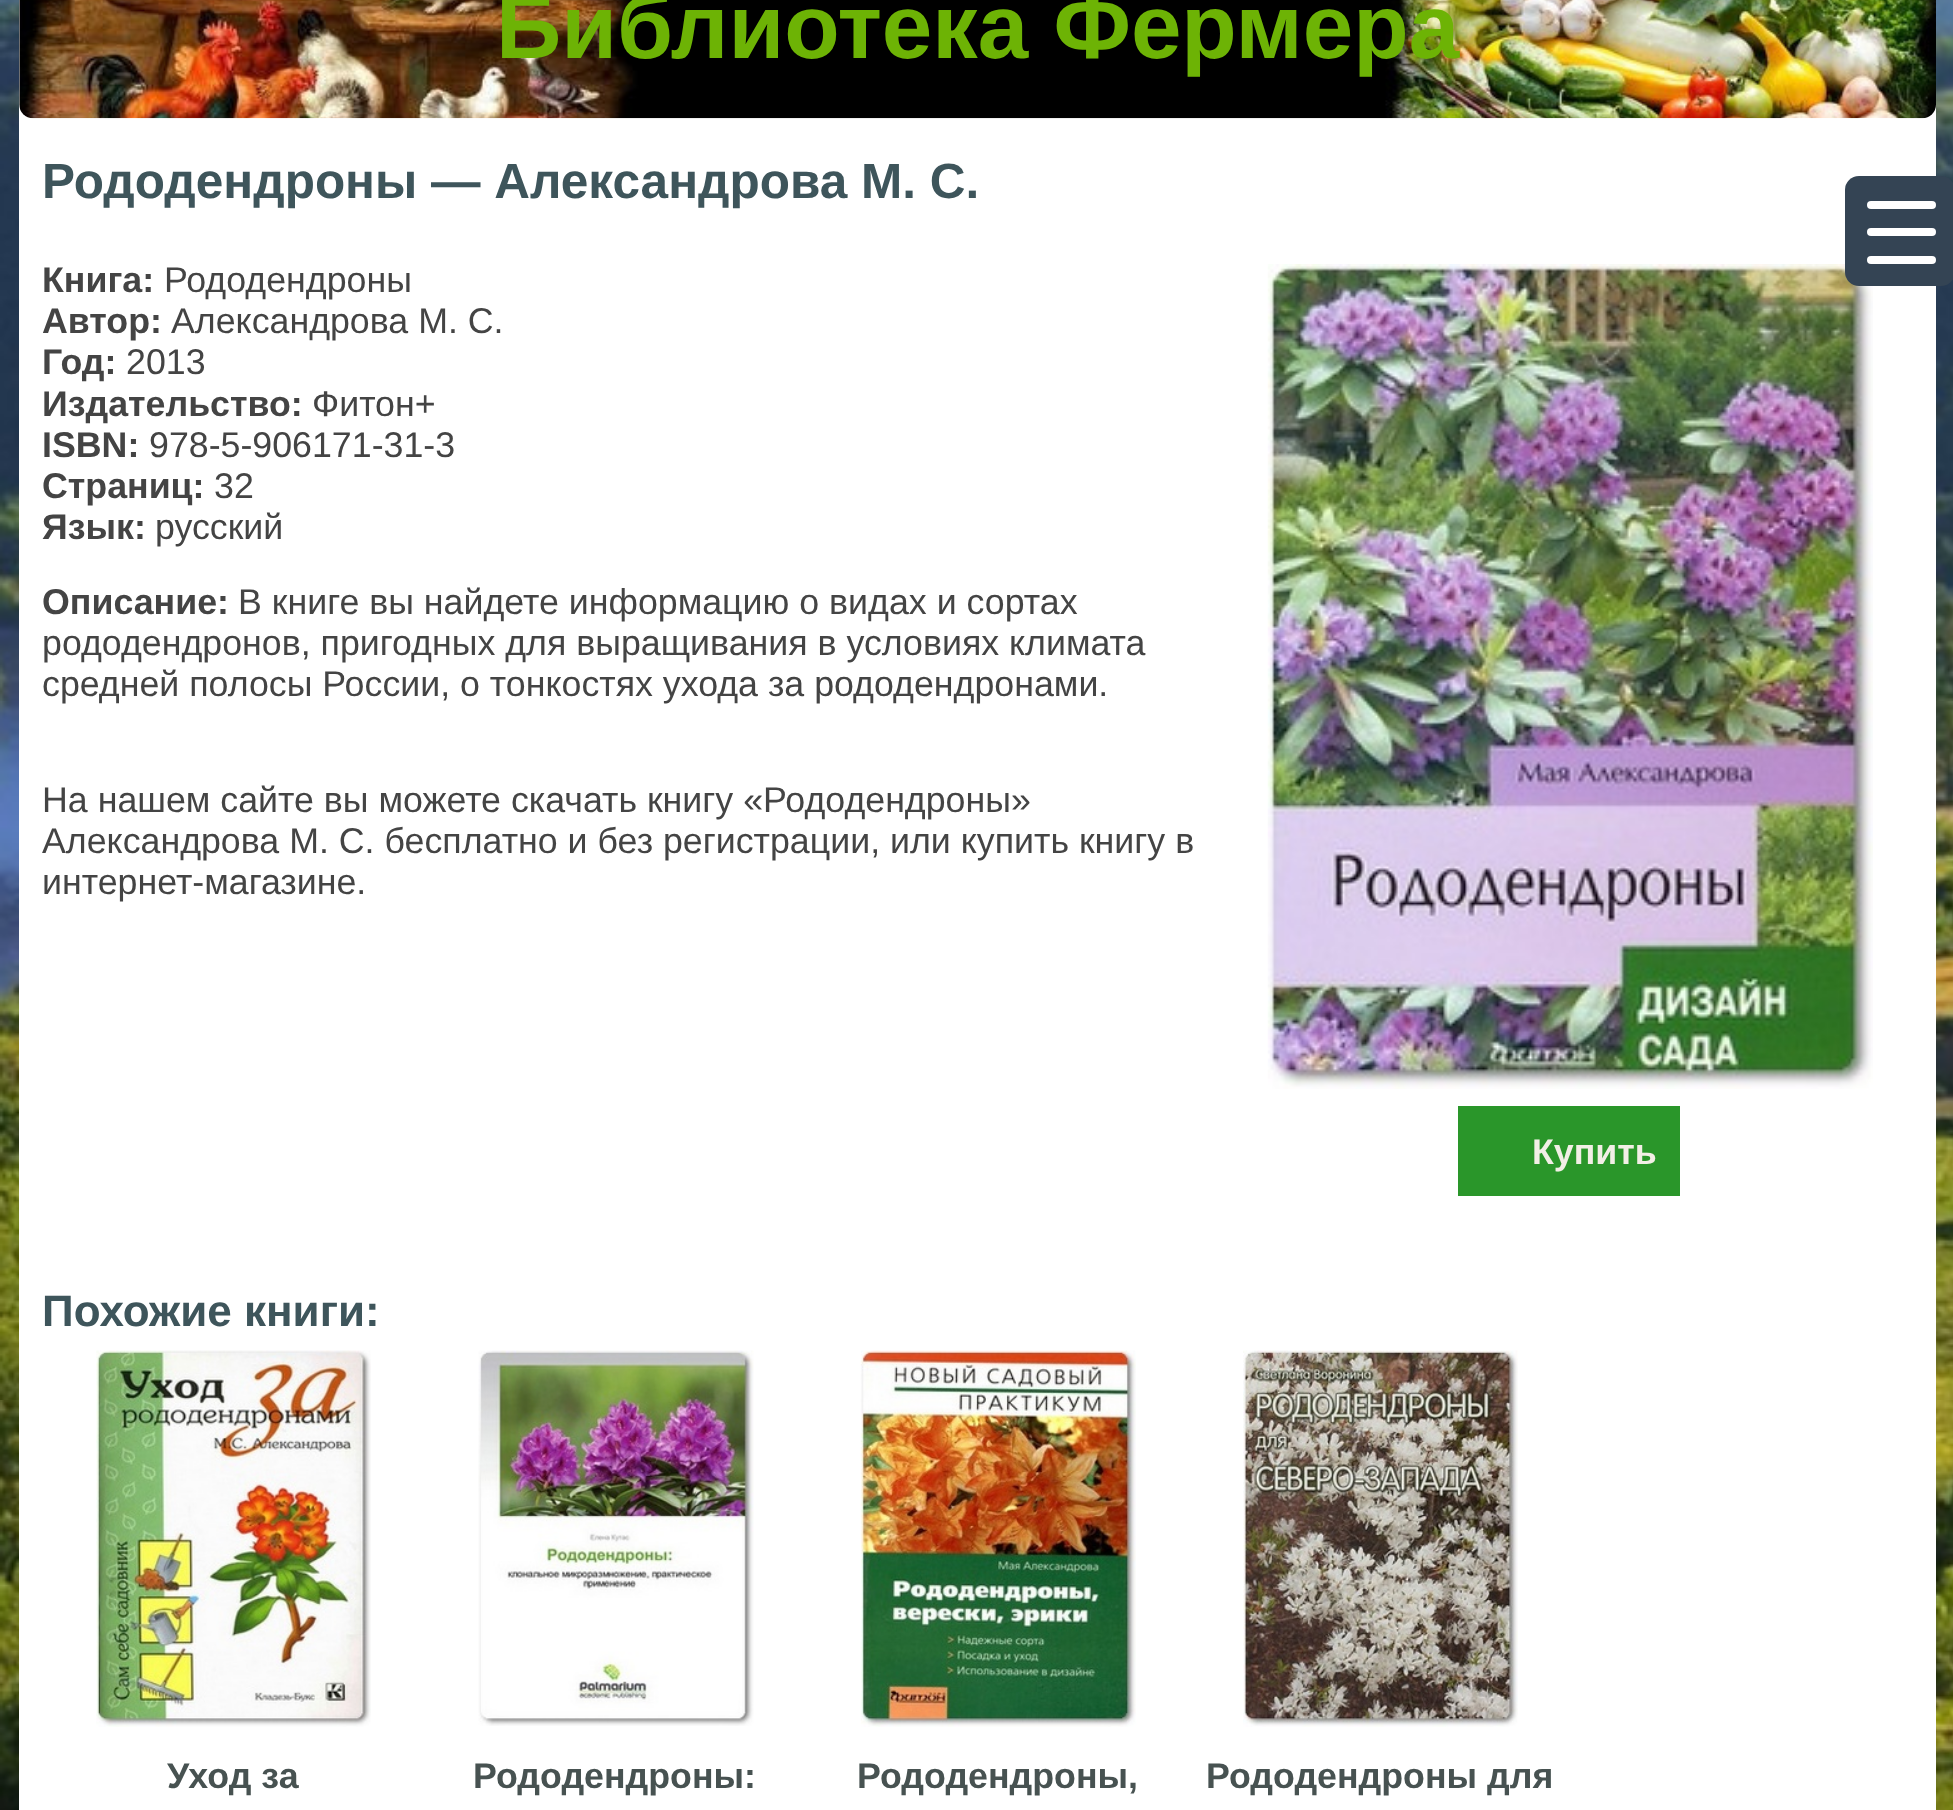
<svg xmlns="http://www.w3.org/2000/svg" xmlns:xlink="http://www.w3.org/1999/xlink" width="1953" height="1810" viewBox="0 0 1953 1810">
<style>
.cls-1{font:bold 90.75px Liberation Sans;fill:#6db305}
.cls-2{font:bold 49.5px Liberation Sans;fill:#3e555b}
.cls-3{font:bold 35.75px Liberation Sans;fill:#444444}
.cls-4{font:35.75px Liberation Sans;fill:#444444}
.cls-5{font:bold 35.75px Liberation Sans;fill:#f2efe6}
.cls-6{font:bold 44px Liberation Sans;fill:#3e555b}
.cls-7{font:bold 35.75px Liberation Sans;fill:#475251}
</style>
<rect width="100%" height="100%" fill="#ffffff"/>
<image xlink:href="image0.png" x="0" y="0" width="1953" height="1810"/>
<rect fill="#ffffff" x="19" y="0" width="1917" height="1810"/>
<image xlink:href="image1.png" x="19" y="0" width="1917" height="119"/>
<image xlink:href="image2.png" x="1267" y="264" width="606" height="825"/>
<rect fill="#2a962a" x="1458" y="1106" width="222" height="90"/>
<image xlink:href="image3.png" x="96" y="1350" width="275" height="377"/>
<image xlink:href="image4.png" x="478" y="1350" width="276" height="376"/>
<image xlink:href="image5.png" x="860" y="1350" width="276" height="377"/>
<image xlink:href="image6.png" x="1243" y="1350" width="275" height="377"/>
<rect fill="#344454" x="1845" y="176" width="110" height="110" rx="14"/>
<rect fill="#ffffff" x="1867" y="228" width="69" height="8" rx="4"/>
<rect fill="#ffffff" x="1867" y="201" width="69" height="8" rx="4"/>
<rect fill="#ffffff" x="1867" y="256" width="69" height="8" rx="4"/>
<text class="cls-1" x="496" y="58">Библиотека Фермера</text>
<text class="cls-2" x="42" y="198">Рододендроны — Александрова М. С.</text>
<text class="cls-3" x="42" y="292">Книга:</text>
<text class="cls-4" x="164" y="292">Рододендроны</text>
<text class="cls-3" x="42" y="333">Автор:</text>
<text class="cls-4" x="171" y="333">Александрова М. С.</text>
<text class="cls-3" x="42" y="374">Год:</text>
<text class="cls-4" x="126" y="374">2013</text>
<text class="cls-3" x="42" y="416">Издательство:</text>
<text class="cls-4" x="312" y="416">Фитон+</text>
<text class="cls-3" x="42" y="457">ISBN:</text>
<text class="cls-4" x="149" y="457">978-5-906171-31-3</text>
<text class="cls-3" x="42" y="498">Страниц:</text>
<text class="cls-4" x="214" y="498">32</text>
<text class="cls-3" x="42" y="539">Язык:</text>
<text class="cls-4" x="155" y="539">русский</text>
<text class="cls-3" x="42" y="614">Описание:</text>
<text class="cls-4" x="238" y="614">В книге вы найдете информацию о видах и сортах</text>
<text class="cls-4"><tspan x="42" y="655">рододендронов, пригодных для выращивания в условиях климата</tspan><tspan x="42" y="696">средней полосы России, о тонкостях ухода за рододендронами.</tspan></text>
<text class="cls-4"><tspan x="42" y="812">На нашем сайте вы можете скачать книгу «Рододендроны»</tspan><tspan x="42" y="853">Александрова М. С. бесплатно и без регистрации, или купить книгу в</tspan><tspan x="42" y="894">интернет-магазине.</tspan></text>
<text class="cls-5" x="1532" y="1164">Купить</text>
<text class="cls-6" x="42" y="1326">Похожие книги:</text>
<text class="cls-7" x="167" y="1788">Уход за</text>
<text class="cls-7" x="473" y="1788">Рододендроны:</text>
<text class="cls-7" x="857" y="1788">Рододендроны,</text>
<text class="cls-7" x="1206" y="1788">Рододендроны для</text>
</svg>
